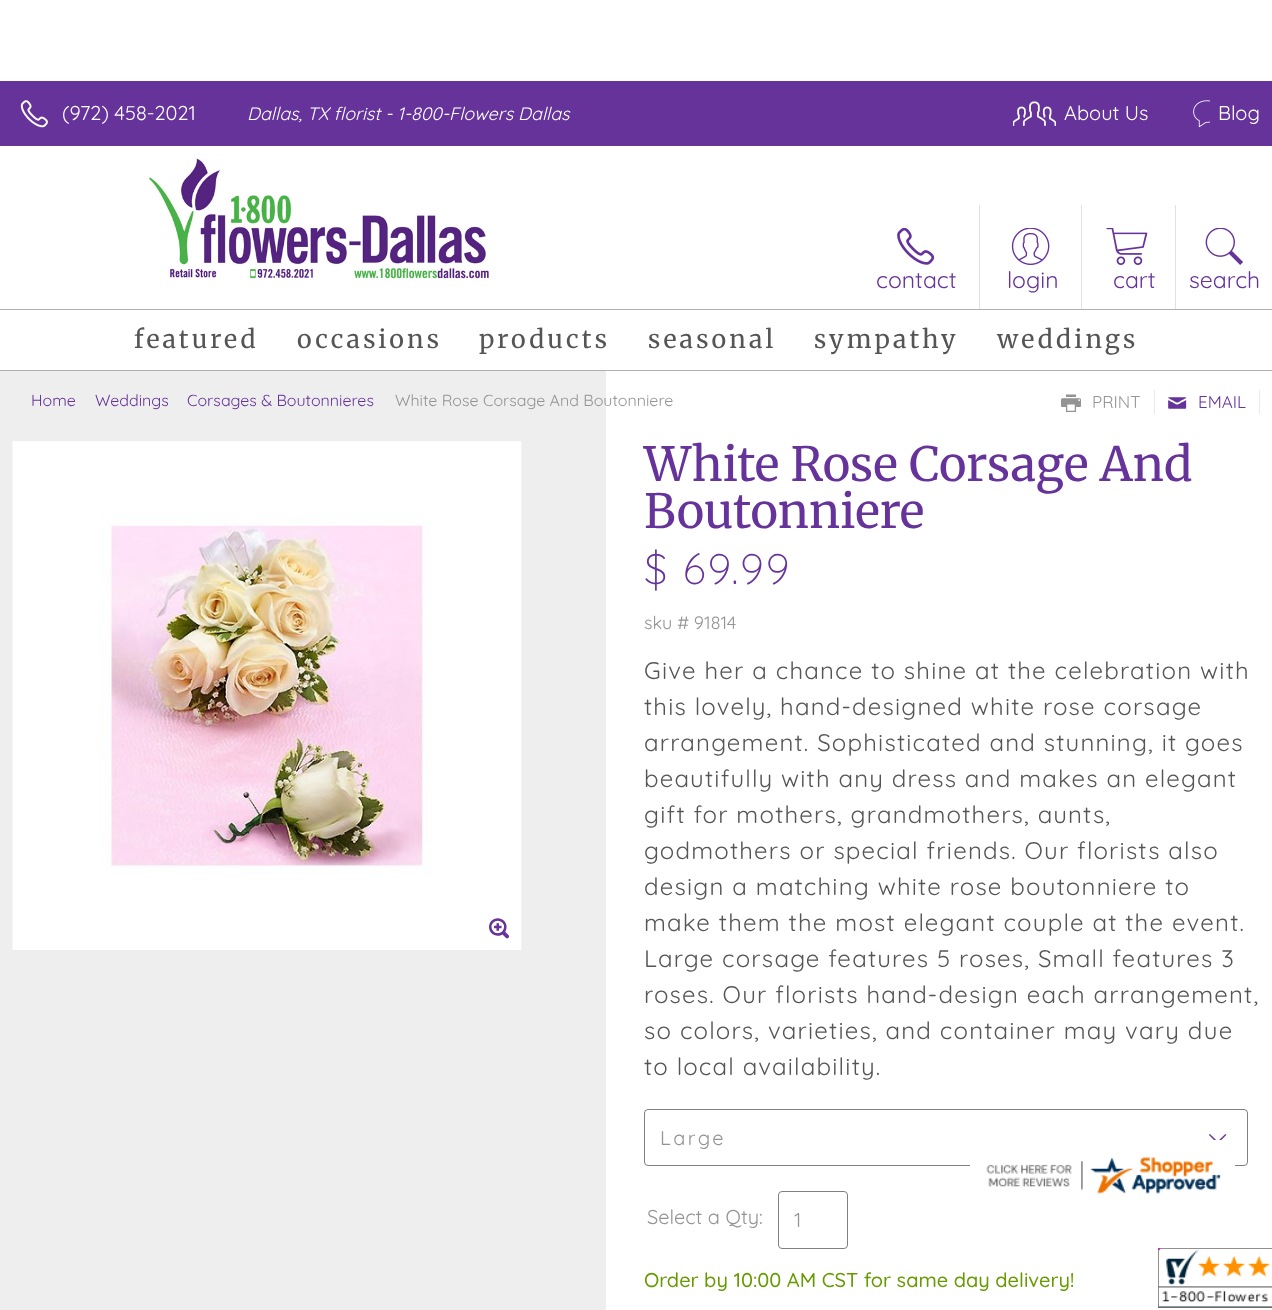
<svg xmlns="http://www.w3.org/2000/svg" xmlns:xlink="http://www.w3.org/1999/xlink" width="1272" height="1310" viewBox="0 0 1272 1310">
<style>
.cls-1{font:20px Quicksand;fill:#ffffff}
.cls-2{font:italic 18px Quicksand;fill:#ffffff}
.cls-3{font:23px Quicksand;fill:#66339a}
.cls-4{font:25px Merriweather;letter-spacing:3.1px;fill:#555555}
.cls-5{font:16px Quicksand;fill:#66339a}
.cls-6{font:16px Quicksand;fill:#949494}
.cls-7{font:20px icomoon;fill:#949494}
.cls-8{font:17px Quicksand;fill:#949494}
.cls-9{font:20px icomoon;fill:#66339a}
.cls-10{font:17px Quicksand;fill:#66339a}
.cls-11{font:47px Merriweather;fill:#66339a}
.cls-12{font:300 42.5px Quicksand;letter-spacing:2px;fill:#66339a}
.cls-13{font:18px Quicksand;fill:#949494}
.cls-14{font:24px Quicksand;letter-spacing:1.2px;fill:#555555}
.cls-15{font:20px Quicksand;letter-spacing:2.5px;fill:#949494}
.cls-16{font:20px Quicksand;fill:#949494}
.cls-17{font:500 20px Quicksand;fill:#679a01}
</style>
<rect width="100%" height="100%" fill="#ffffff"/>
<rect fill="#66339a" x="0" y="81" width="1272" height="65"/>
<image xlink:href="image0.png" x="20" y="100" width="28" height="28"/>
<image xlink:href="image1.png" x="1013" y="101" width="43" height="25"/>
<image xlink:href="image2.png" x="1193" y="100" width="17" height="28"/>
<image xlink:href="image3.png" x="147" y="158" width="342" height="123"/>
<image xlink:href="image4.png" x="897" y="228" width="38" height="37"/>
<rect fill="#e1e1e1" x="1081" y="205" width="1" height="104"/>
<rect fill="#e1e1e1" x="979" y="205" width="1" height="104"/>
<image xlink:href="image5.png" x="1011" y="228" width="39" height="37"/>
<image xlink:href="image6.png" x="1106" y="228" width="42" height="37"/>
<rect fill="#e1e1e1" x="1175" y="205" width="1" height="104"/>
<image xlink:href="image7.png" x="1205" y="228" width="38" height="37"/>
<rect fill="#afafaf" x="0" y="309" width="1272" height="1"/>
<rect fill="#afafaf" x="0" y="370" width="1272" height="1"/>
<rect fill="#eeeeee" x="0" y="371" width="606" height="939"/>
<rect fill="#eaeaea" x="1259" y="390" width="1" height="24"/>
<rect fill="#eaeaea" x="1154" y="390" width="1" height="24"/>
<image xlink:href="image8.png" x="12" y="441" width="510" height="509"/>
<rect fill="none" stroke="#808080" x="644.5" y="1109.5" width="603" height="56" rx="3.5"/>
<image xlink:href="image9.png" x="1209" y="1134" width="18" height="6"/>
<rect fill="none" stroke="#808080" x="778.5" y="1191.5" width="69" height="57" rx="3.5"/>
<rect fill="#ffffff" x="970" y="1140" width="265" height="70" rx="6"/>
<image xlink:href="image10.png" x="986" y="1157" width="235" height="37"/>
<image xlink:href="image11.png" x="1158" y="1248" width="114" height="60"/>
<text class="cls-1" x="62" y="120">(972) 458-2021</text>
<text class="cls-2" x="247" y="120">Dallas, TX florist - 1-800-Flowers Dallas</text>
<text class="cls-1" x="1064" y="120">About Us</text>
<text class="cls-1" x="1218" y="120">Blog</text>
<text class="cls-3" x="876" y="288">contact</text>
<text class="cls-3" x="1007" y="288">login</text>
<text class="cls-3" x="1113" y="288">cart</text>
<text class="cls-3" x="1189" y="288">search</text>
<text class="cls-4" x="134" y="348">featured</text>
<text class="cls-4" x="297" y="348">occasions</text>
<text class="cls-4" x="479" y="348">products</text>
<text class="cls-4" x="648" y="348">seasonal</text>
<text class="cls-4" x="814" y="348">sympathy</text>
<text class="cls-4" x="997" y="348">weddings</text>
<text class="cls-5" x="31" y="406">Home</text>
<text class="cls-5" x="95" y="406">Weddings</text>
<text class="cls-5" x="187" y="406">Corsages &amp; Boutonnieres</text>
<text class="cls-6" x="395" y="406">White Rose Corsage And Boutonniere</text>
<text class="cls-7" x="1061" y="412">4</text>
<text class="cls-8" x="1092" y="408">PRINT</text>
<text class="cls-9" x="1167" y="412">&lt;</text>
<text class="cls-10" x="1198" y="408">EMAIL</text>
<text class="cls-9" x="489" y="937">-</text>
<text class="cls-11"><tspan x="644" y="481">White Rose Corsage And</tspan><tspan x="644" y="528">Boutonniere</tspan></text>
<text class="cls-12" x="644" y="584">$ 69.99</text>
<text class="cls-13" x="644" y="629">sku # 91814</text>
<text class="cls-14"><tspan x="644" y="679">Give her a chance to shine at the celebration with</tspan><tspan x="644" y="715">this lovely, hand-designed white rose corsage</tspan><tspan x="644" y="751">arrangement. Sophisticated and stunning, it goes</tspan><tspan x="644" y="787">beautifully with any dress and makes an elegant</tspan><tspan x="644" y="823">gift for mothers, grandmothers, aunts,</tspan><tspan x="644" y="859">godmothers or special friends. Our florists also</tspan><tspan x="644" y="895">design a matching white rose boutonniere to</tspan><tspan x="644" y="931">make them the most elegant couple at the event.</tspan><tspan x="644" y="967">Large corsage features 5 roses, Small features 3</tspan><tspan x="644" y="1003">roses. Our florists hand-design each arrangement,</tspan><tspan x="644" y="1039">so colors, varieties, and container may vary due</tspan><tspan x="644" y="1075">to local availability.</tspan></text>
<text class="cls-15" x="660" y="1145">Large</text>
<text class="cls-16" x="647" y="1224">Select a Qty:</text>
<text class="cls-15" x="794" y="1227">1</text>
<text class="cls-17" x="644" y="1287">Order by 10:00 AM CST for same day delivery!</text>
</svg>
